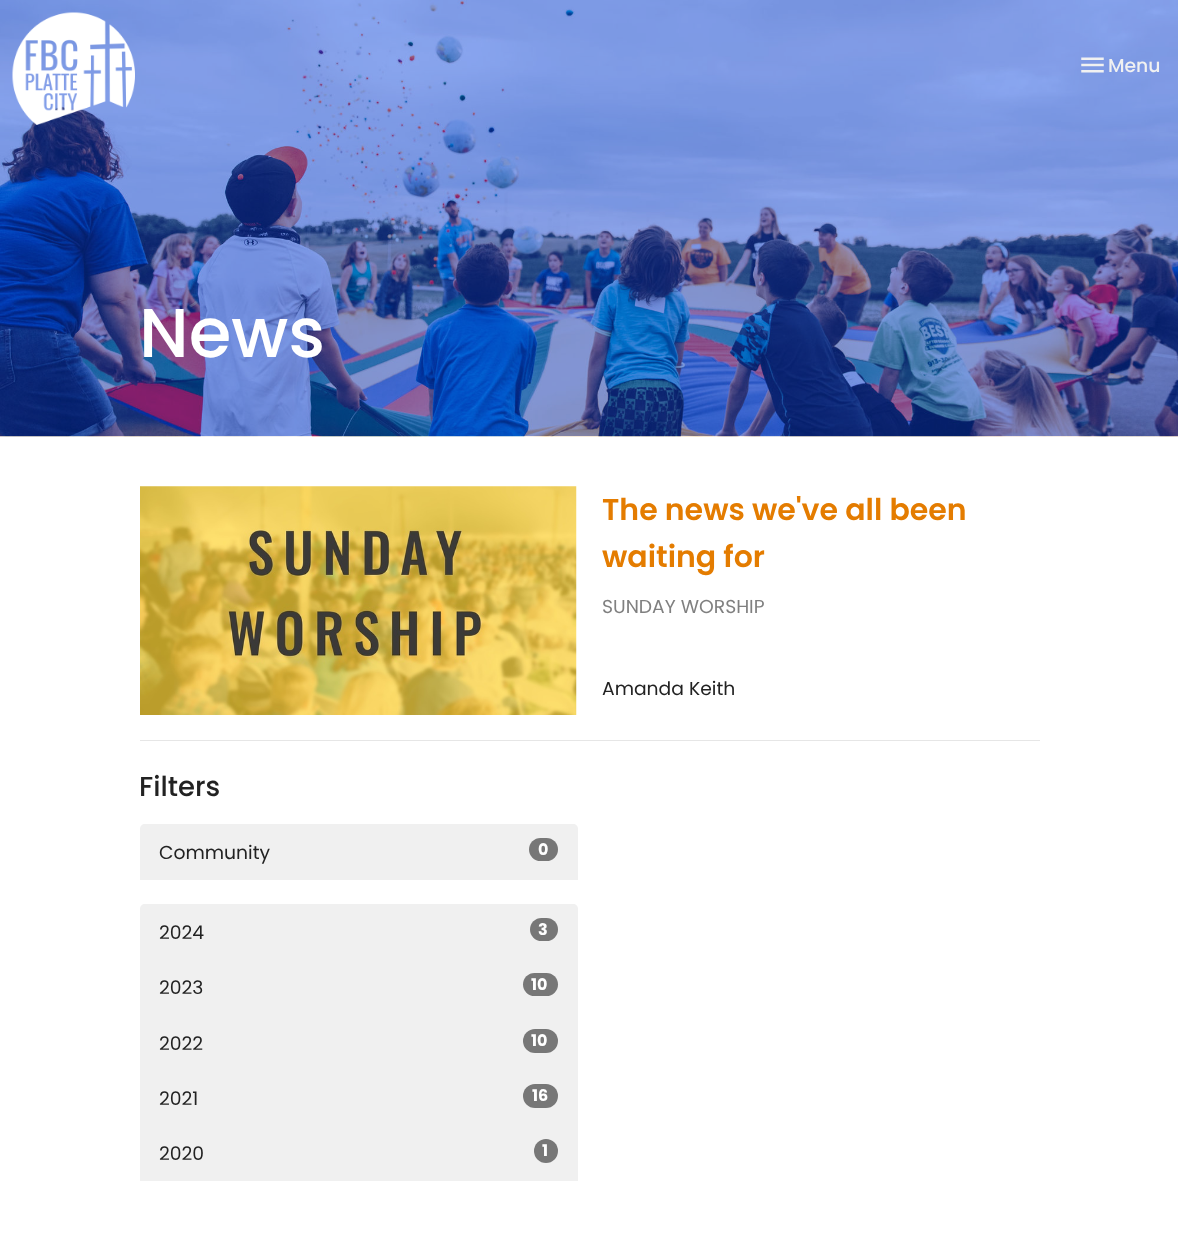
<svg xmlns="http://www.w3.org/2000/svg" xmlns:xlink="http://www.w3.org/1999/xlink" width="1178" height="1247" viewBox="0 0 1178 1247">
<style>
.cls-1{font:500 18.75px Poppins;fill:#f1f1f1}
.cls-2{font:500 69px Poppins;fill:#ffffff}
.cls-3{font:600 30px Poppins;fill:#e47c00}
.cls-4{font:18.75px Poppins;fill:#808080}
.cls-5{font:18.75px Poppins;fill:#222222}
.cls-6{font:500 27.5px Poppins;fill:#222222}
.cls-7{font:bold 16px Poppins;fill:#ffffff}
</style>
<rect width="100%" height="100%" fill="#ffffff"/>
<image xlink:href="image2.png" x="0" y="0" width="1178" height="437"/>
<image xlink:href="image0.png" x="12" y="12" width="123" height="113"/>
<image xlink:href="image1.png" x="1081" y="57" width="23" height="16"/>
<rect fill="#e6e6e6" x="140" y="740" width="900" height="1"/>
<image xlink:href="image3.png" x="140" y="486" width="437" height="229"/>
<path fill="#f0f0f0" d="M145 824H573C576 824 578 826 578 829V880H140V829C140 826 142 824 145 824Z"/>
<rect fill="#777777" x="529" y="838" width="29" height="23" rx="11.5"/>
<path fill="#f0f0f0" d="M145 904H573C576 904 578 906 578 909V960H140V909C140 906 142 904 145 904Z"/>
<rect fill="#777777" x="530" y="918" width="28" height="23" rx="11.5"/>
<rect fill="#f0f0f0" x="140" y="960" width="438" height="221"/>
<rect fill="#777777" x="523" y="973" width="35" height="23" rx="11.5"/>
<rect fill="#777777" x="523" y="1029" width="35" height="24" rx="12"/>
<rect fill="#777777" x="523" y="1084" width="35" height="24" rx="12"/>
<circle fill="#777777" cx="546" cy="1151" r="12"/>
<text class="cls-1" x="1108" y="72">Menu</text>
<text class="cls-2" x="139" y="357">News</text>
<text class="cls-3"><tspan x="602" y="520">The news we've all been</tspan><tspan x="602" y="567">waiting for</tspan></text>
<text class="cls-4" x="602" y="613">SUNDAY WORSHIP</text>
<text class="cls-5" x="602" y="695">Amanda Keith</text>
<text class="cls-6" x="139" y="796">Filters</text>
<text class="cls-5" x="159" y="859">Community</text>
<text class="cls-7" x="538" y="855">0</text>
<text class="cls-5" x="159" y="939">2024</text>
<text class="cls-7" x="538" y="935">3</text>
<text class="cls-5" x="159" y="994">2023</text>
<text class="cls-7" x="531" y="990">10</text>
<text class="cls-5" x="159" y="1050">2022</text>
<text class="cls-7" x="531" y="1046">10</text>
<text class="cls-5" x="159" y="1105">2021</text>
<text class="cls-7" x="532" y="1101">16</text>
<text class="cls-5" x="159" y="1160">2020</text>
<text class="cls-7" x="542" y="1156">1</text>
</svg>
